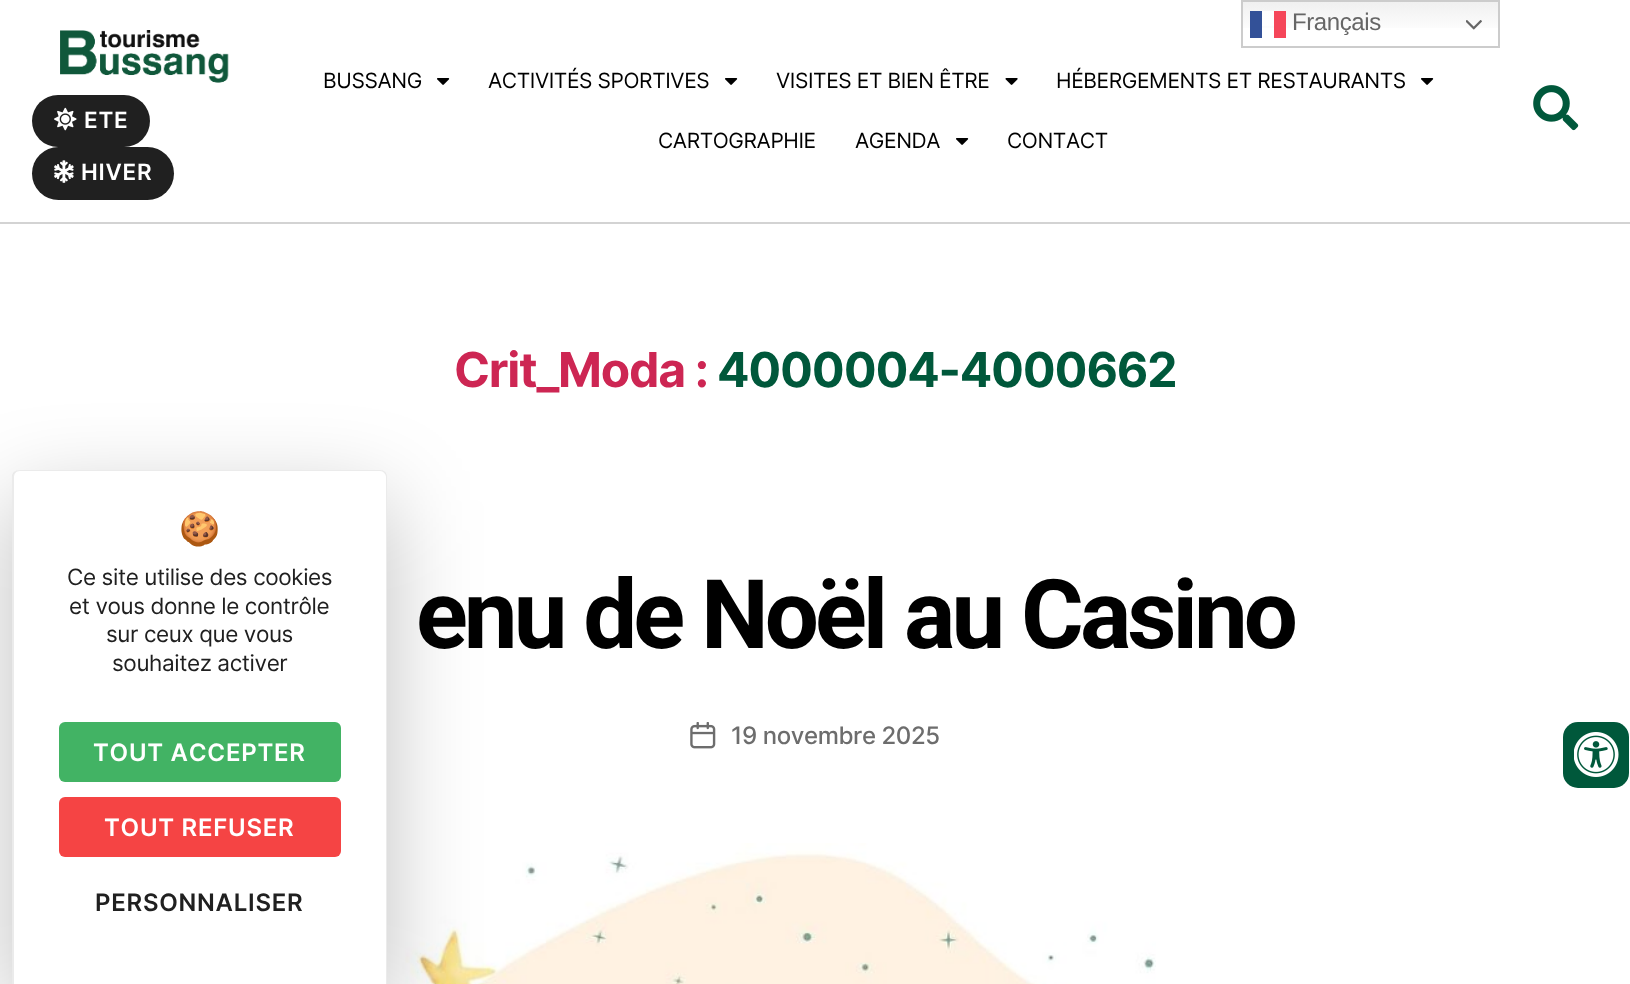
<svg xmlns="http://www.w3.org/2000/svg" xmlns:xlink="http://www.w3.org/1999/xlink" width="1630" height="984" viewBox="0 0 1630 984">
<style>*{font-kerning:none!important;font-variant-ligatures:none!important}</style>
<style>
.cls-1{font:24px Liberation Sans;letter-spacing:-0.4px;fill:#666666}
.cls-2{font:600 22.5px Inter;letter-spacing:0.75px;fill:#ffffff}
.cls-3{font:21px Inter;letter-spacing:-0.4px;fill:#000000}
.cls-4{font:bold 48px Inter;letter-spacing:-1.25px;fill:#cd2653}
.cls-5{font:bold 48px Inter;letter-spacing:-1.25px;fill:#00583b}
.cls-6{font:bold 96px Roboto;letter-spacing:-4px;fill:#000000}
.cls-7{font:500 24px Inter;letter-spacing:-0.4px;fill:#6d6d6d}
.cls-8{font:33px Noto Color Emoji;letter-spacing:-0.4px;fill:#202020}
.cls-9{font:22.5px Inter;letter-spacing:-0.4px;fill:#202020}
.cls-10{font:600 24px Inter;letter-spacing:0.75px;fill:#ffffff}
.cls-11{font:600 24px Inter;letter-spacing:0.75px;fill:#202020}
</style>
<defs>
<linearGradient id="g1" gradientUnits="userSpaceOnUse" x1="1370" y1="0" x2="1370" y2="48"><stop offset="0" stop-color="#efefef"/><stop offset="0.7" stop-color="#ffffff"/></linearGradient>
<linearGradient id="g2" gradientUnits="userSpaceOnUse" x1="1370" y1="0" x2="1370" y2="48"><stop offset="0" stop-color="#fcfcfc"/><stop offset="0.7" stop-color="#ffffff"/></linearGradient>
</defs>
<rect width="100%" height="100%" fill="#ffffff"/>
<rect fill="url(#g1)" x="1243" y="2" width="255" height="26"/>
<rect fill="url(#g2)" x="1262" y="11" width="12" height="15"/>
<rect fill="none" stroke="#cccccc" stroke-width="2" x="1242" y="1" width="257" height="46"/>
<rect fill="#335198" x="1250" y="11" width="12" height="27"/>
<rect fill="#f54659" x="1274" y="11" width="12" height="27"/>
<image xlink:href="image0.png" x="1466" y="20" width="16" height="10"/>
<rect fill="#d3d3d3" x="0" y="222" width="1630" height="2"/>
<image xlink:href="image1.png" x="60" y="30" width="169" height="53"/>
<rect fill="#202020" x="32" y="95" width="118" height="52" rx="26"/>
<image xlink:href="image2.png" x="54" y="107" width="23" height="24"/>
<rect fill="#202020" x="32" y="147" width="142" height="53" rx="26.5"/>
<image xlink:href="image3.png" x="54" y="160" width="20" height="23"/>
<image xlink:href="image4.png" x="437" y="78" width="13" height="7"/>
<image xlink:href="image4.png" x="725" y="78" width="13" height="7"/>
<image xlink:href="image5.png" x="1005" y="78" width="13" height="7"/>
<image xlink:href="image4.png" x="1421" y="78" width="13" height="7"/>
<image xlink:href="image4.png" x="956" y="138" width="13" height="7"/>
<image xlink:href="image6.png" x="1533" y="85" width="46" height="46"/>
<image xlink:href="image7.png" x="690" y="722" width="26" height="27"/>
<image xlink:href="image8.png" x="387" y="843" width="769" height="141"/>
<rect fill="#000000" fill-opacity="0.25" filter="blur(45px)" x="12" y="500" width="375" height="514" rx="8"/>
<path fill="#ffffff" d="M20 470H379C383.5 470 387 473.5 387 478V984H12V478C12 473.5 15.5 470 20 470Z"/>
<path fill="#000000" fill-opacity="0.08" fill-rule="evenodd" d="M20 470H380C384 470 387 473 387 477V984H12V477C12 473 15 470 20 470ZM20 471H380C383 471 386 474 386 477V984H14V477C14 474 16 471 20 471Z"/>
<rect fill="#42b364" x="59" y="722" width="282" height="60" rx="6"/>
<rect fill="#f54444" x="59" y="797" width="282" height="60" rx="6"/>
<rect fill="#00583b" x="1563" y="722" width="66" height="66" rx="15"/>
<image xlink:href="image9.png" x="1574" y="732" width="45" height="45"/>
<text class="cls-1" x="1292" y="30">Français</text>
<text class="cls-2" x="84" y="128">ETE</text>
<text class="cls-2" x="81" y="180">HIVER</text>
<text class="cls-3" x="323" y="88">BUSSANG</text>
<text class="cls-3" x="488" y="88">ACTIVITÉS SPORTIVES</text>
<text class="cls-3" x="776" y="88">VISITES ET BIEN ÊTRE</text>
<text class="cls-3" x="1056" y="88">HÉBERGEMENTS ET RESTAURANTS</text>
<text class="cls-3" x="658" y="148">CARTOGRAPHIE</text>
<text class="cls-3" x="855" y="148">AGENDA</text>
<text class="cls-3" x="1007" y="148">CONTACT</text>
<text class="cls-4" x="454" y="387">Crit_Moda :</text>
<text class="cls-5" x="717" y="387">4000004-4000662</text>
<text class="cls-6" x="416" y="648">enu de Noël au Casino</text>
<text class="cls-7" x="731" y="744">19 novembre 2025</text>
<text class="cls-8" x="179" y="540">🍪</text>
<text class="cls-9" x="67" y="585">Ce site utilise des cookies</text>
<text class="cls-9" x="69" y="614">et vous donne le contrôle</text>
<text class="cls-9" x="106" y="642">sur ceux que vous</text>
<text class="cls-9" x="112" y="671">souhaitez activer</text>
<text class="cls-10" x="93" y="761">TOUT ACCEPTER</text>
<text class="cls-10" x="104" y="836">TOUT REFUSER</text>
<text class="cls-11" x="95" y="911">PERSONNALISER</text>
</svg>
